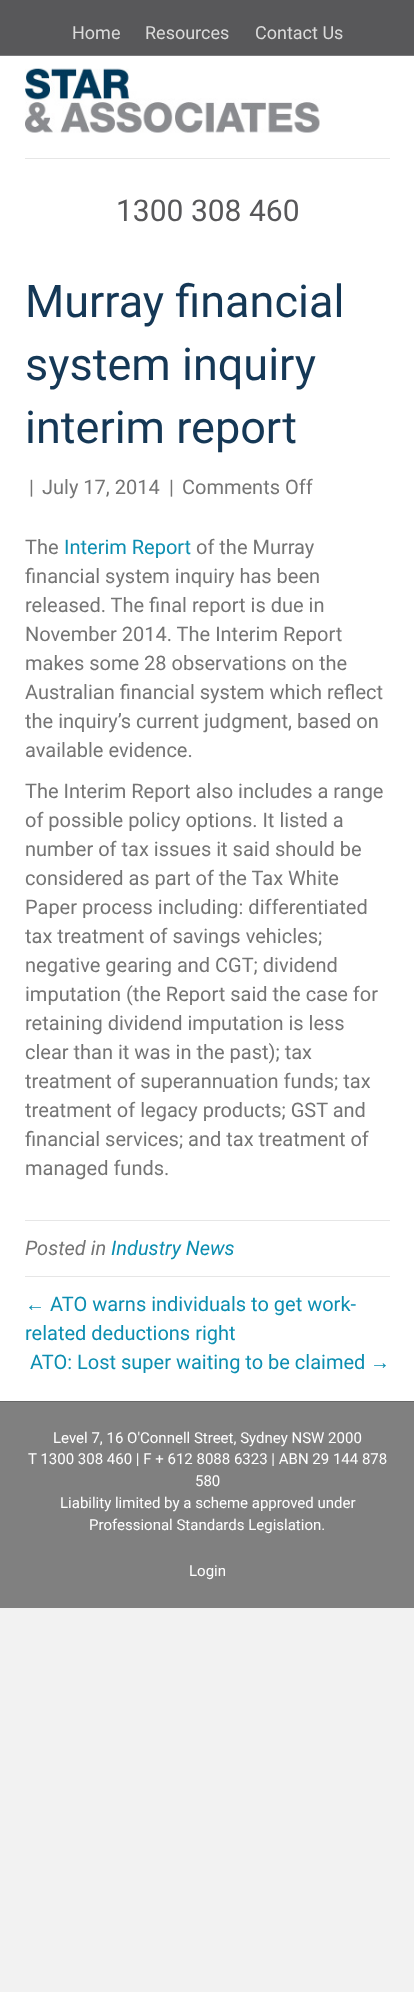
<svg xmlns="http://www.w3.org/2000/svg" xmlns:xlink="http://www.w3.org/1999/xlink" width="414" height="1992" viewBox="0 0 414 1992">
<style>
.cls-1{font:18px Roboto;fill:#dbdbdb}
.cls-2{font:30px Roboto;fill:#58585a}
.cls-3{font:45px Roboto;fill:#153856}
.cls-4{font:20px Roboto;fill:#757575}
.cls-5{font:20px Roboto;fill:#0c8eb1}
.cls-6{font:italic 20px Roboto;fill:#757575}
.cls-7{font:italic 20px Roboto;fill:#0c8eb1}
.cls-8{font:20px Liberation Sans;fill:#0c8eb1}
.cls-9{font:15px Roboto;fill:#ffffff}
</style>
<rect width="100%" height="100%" fill="#f2f2f2"/>
<rect fill="#58585a" x="0" y="0" width="414" height="55"/>
<rect fill="#79797c" x="0" y="55" width="414" height="1"/>
<rect fill="#ffffff" x="0" y="56" width="414" height="1345"/>
<image xlink:href="image0.png" x="25" y="68" width="295" height="65"/>
<rect fill="#e6e6e6" x="25" y="158" width="365" height="1"/>
<rect fill="#e6e6e6" x="25" y="1220" width="365" height="1"/>
<rect fill="#e6e6e6" x="25" y="1276" width="365" height="1"/>
<rect fill="#808080" x="0" y="1402" width="414" height="206"/>
<rect fill="#676767" x="0" y="1401" width="414" height="1"/>
<text class="cls-1" x="72" y="39">Home</text>
<text class="cls-1" x="145" y="39">Resources</text>
<text class="cls-1" x="255" y="39">Contact Us</text>
<text class="cls-2" x="116" y="221">1300 308 460</text>
<text class="cls-3"><tspan x="25" y="317">Murray financial</tspan><tspan x="25" y="380">system inquiry</tspan><tspan x="25" y="443">interim report</tspan></text>
<text class="cls-4" x="29" y="494">|</text>
<text class="cls-4" x="42" y="494">July 17, 2014</text>
<text class="cls-4" x="169" y="494">|</text>
<text class="cls-4" x="182" y="494">Comments Off</text>
<text class="cls-4" x="25" y="554">The</text>
<text class="cls-5" x="64" y="554">Interim Report</text>
<text class="cls-4" x="196" y="554">of the Murray</text>
<text class="cls-4"><tspan x="25" y="583">financial system inquiry has been</tspan><tspan x="25" y="612">released. The final report is due in</tspan><tspan x="25" y="641">November 2014. The Interim Report</tspan><tspan x="25" y="670">makes some 28 observations on the</tspan><tspan x="25" y="699">Australian financial system which reflect</tspan><tspan x="25" y="728">the inquiry’s current judgment, based on</tspan><tspan x="25" y="757">available evidence.</tspan></text>
<text class="cls-4"><tspan x="25" y="798">The Interim Report also includes a range</tspan><tspan x="25" y="827">of possible policy options. It listed a</tspan><tspan x="25" y="856">number of tax issues it said should be</tspan><tspan x="25" y="885">considered as part of the Tax White</tspan><tspan x="25" y="914">Paper process including: differentiated</tspan><tspan x="25" y="943">tax treatment of savings vehicles;</tspan><tspan x="25" y="972">negative gearing and CGT; dividend</tspan><tspan x="25" y="1001">imputation (the Report said the case for</tspan><tspan x="25" y="1030">retaining dividend imputation is less</tspan><tspan x="25" y="1059">clear than it was in the past); tax</tspan><tspan x="25" y="1088">treatment of superannuation funds; tax</tspan><tspan x="25" y="1117">treatment of legacy products; GST and</tspan><tspan x="25" y="1146">financial services; and tax treatment of</tspan><tspan x="25" y="1175">managed funds.</tspan></text>
<text class="cls-6" x="25" y="1255">Posted in</text>
<text class="cls-7" x="111" y="1255">Industry News</text>
<text class="cls-8" x="25" y="1311">←</text>
<text class="cls-5" x="50" y="1311">ATO warns individuals to get work-</text>
<text class="cls-5" x="25" y="1340">related deductions right</text>
<text class="cls-5" x="30" y="1369">ATO: Lost super waiting to be claimed</text>
<text class="cls-8" x="370" y="1369">→</text>
<text class="cls-9" x="53" y="1443">Level 7, 16 O'Connell Street, Sydney NSW 2000</text>
<text class="cls-9" x="28" y="1464">T 1300 308 460 | F + 612 8088 6323 | ABN 29 144 878</text>
<text class="cls-9" x="195" y="1486">580</text>
<text class="cls-9" x="60" y="1508">Liability limited by a scheme approved under</text>
<text class="cls-9" x="89" y="1530">Professional Standards Legislation.</text>
<text class="cls-9" x="189" y="1576">Login</text>
</svg>
